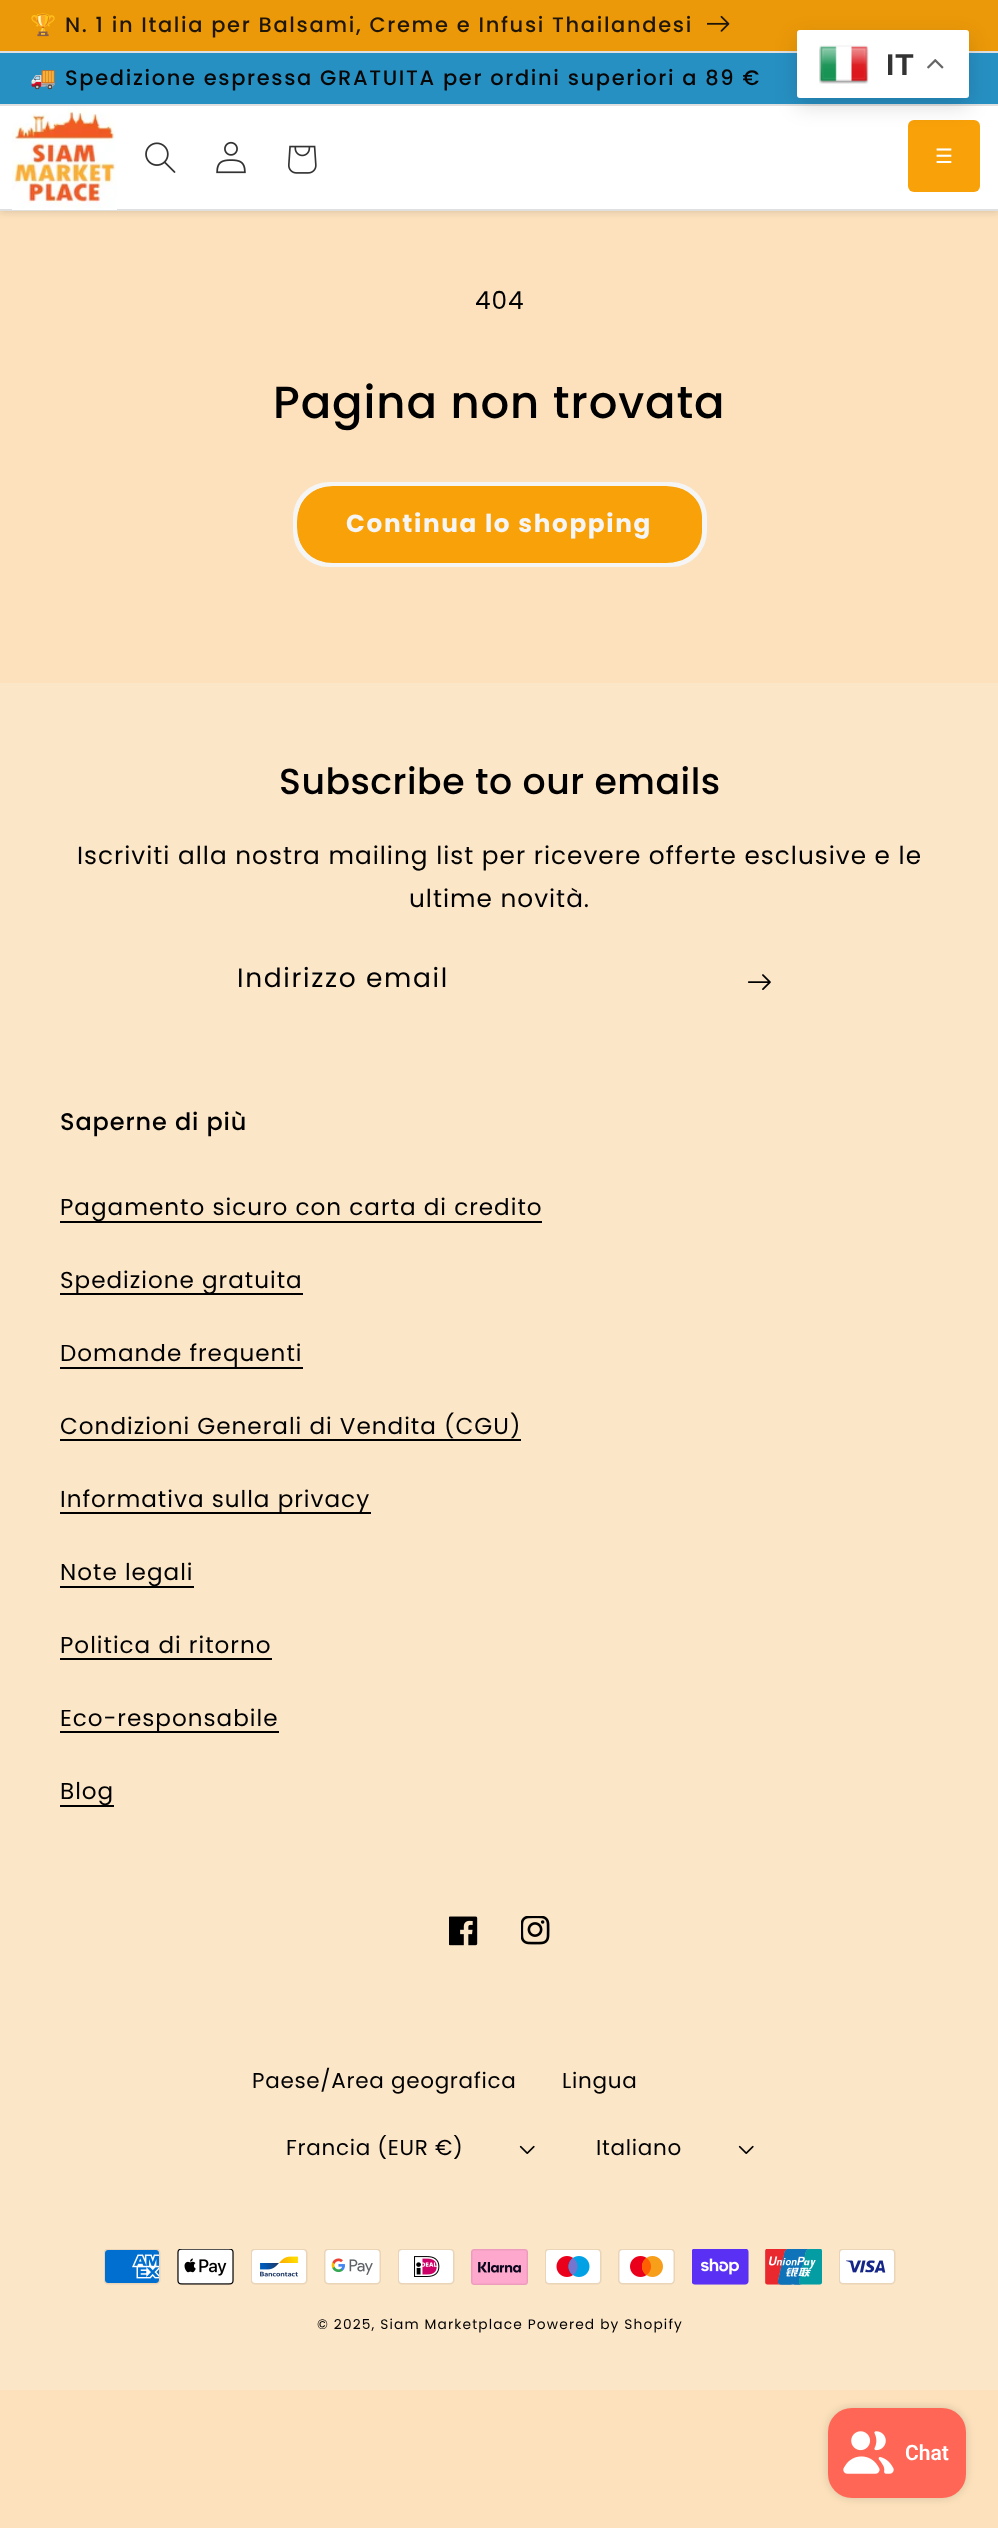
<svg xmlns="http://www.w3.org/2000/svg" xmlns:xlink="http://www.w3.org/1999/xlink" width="998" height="2528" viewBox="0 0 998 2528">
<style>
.cls-1{font:21px Noto Color Emoji;letter-spacing:1.65px;fill:#201607}
.cls-2{font:500 21px Poppins;letter-spacing:1.65px;fill:#201607}
.cls-3{font:21px Noto Color Emoji;letter-spacing:1.65px;fill:#080707}
.cls-4{font:500 21px Poppins;letter-spacing:1.65px;fill:#080707}
.cls-5{font:bold 30px Liberation Sans;letter-spacing:1px;fill:#333333}
.cls-6{font:20px DejaVu Sans;fill:#ffffff}
.cls-7{font:24.75px Poppins;letter-spacing:1px;fill:#000000}
.cls-8{font:500 45px Poppins;letter-spacing:0.9px;fill:#000000}
.cls-9{font:bold 24.75px Poppins;letter-spacing:1.65px;fill:#f5f5f5}
.cls-10{font:500 36.25px Poppins;letter-spacing:0.5px;fill:#000000}
.cls-11{font:26.5px Poppins;letter-spacing:1.65px;fill:#000000}
.cls-12{font:500 24px Poppins;letter-spacing:0.9px;fill:#000000}
.cls-13{font:23.1px Poppins;letter-spacing:1px;fill:#000000}
.cls-14{font:21.5px Poppins;letter-spacing:0.7px;fill:#000000}
.cls-15{font:13.75px Poppins;letter-spacing:1.15px;fill:#000000}
.cls-16{font:600 21px Roboto;fill:#ffffff}
</style>
<rect width="100%" height="100%" fill="#fce1bc"/>
<rect fill="#e0e0e0" x="0" y="51" width="998" height="2"/>
<rect fill="#eb9909" x="0" y="0" width="998" height="51"/>
<image xlink:href="image0.png" x="707" y="15" width="23" height="17"/>
<rect fill="#000000" fill-opacity="0.1" filter="blur(3px)" x="0" y="108" width="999" height="105"/>
<rect fill="#2790c3" x="0" y="53" width="998" height="51"/>
<rect fill="#e0e0e0" x="0" y="104" width="998" height="2"/>
<rect fill="#ffffff" x="0" y="106" width="998" height="103"/>
<rect fill="#f8a109" x="908" y="120" width="72" height="72" rx="6"/>
<rect fill="#000000" fill-opacity="0.15" filter="blur(11px)" x="797" y="38" width="172" height="67" rx="3"/>
<rect fill="#ffffff" x="797" y="30" width="172" height="68" rx="3"/>
<image xlink:href="image1.png" x="819" y="45" width="50" height="39"/>
<image xlink:href="image2.png" x="927" y="59" width="17" height="10"/>
<rect fill="#e0e0e0" x="0" y="209" width="998" height="2"/>
<image xlink:href="image3.png" x="12" y="106" width="105" height="104"/>
<image xlink:href="image4.png" x="145" y="142" width="31" height="31"/>
<image xlink:href="image5.png" x="216" y="141" width="30" height="33"/>
<image xlink:href="image6.png" x="288" y="145" width="29" height="29"/>
<rect fill="#f8a109" stroke="#f5f5f5" stroke-width="5" x="295.5" y="484.5" width="409" height="80" rx="33.5"/>
<rect fill="none" stroke="#f8a109" stroke-width="6" x="300" y="489" width="399" height="71" rx="33"/>
<rect fill="#fce6c8" x="0" y="683" width="998" height="1707"/>
<image xlink:href="image7.png" x="747" y="974" width="24" height="16"/>
<rect fill="#000000" x="60" y="1221" width="482" height="2"/>
<rect fill="#000000" x="60" y="1293" width="243" height="2"/>
<rect fill="#000000" x="60" y="1367" width="243" height="2"/>
<rect fill="#000000" x="60" y="1439" width="461" height="2"/>
<rect fill="#000000" x="60" y="1512" width="311" height="2"/>
<rect fill="#000000" x="60" y="1586" width="134" height="2"/>
<rect fill="#000000" x="60" y="1658" width="212" height="2"/>
<rect fill="#000000" x="60" y="1731" width="219" height="2"/>
<rect fill="#000000" x="60" y="1805" width="54" height="2"/>
<image xlink:href="image8.png" x="449" y="1916" width="29" height="30"/>
<image xlink:href="image9.png" x="521" y="1916" width="29" height="29"/>
<image xlink:href="image10.png" x="519" y="2145" width="16" height="9"/>
<image xlink:href="image10.png" x="738" y="2145" width="16" height="9"/>
<image xlink:href="image11.png" x="104" y="2249" width="57" height="36"/>
<image xlink:href="image12.png" x="177" y="2249" width="57" height="36"/>
<image xlink:href="image13.png" x="251" y="2249" width="57" height="36"/>
<image xlink:href="image14.png" x="324" y="2249" width="57" height="36"/>
<image xlink:href="image15.png" x="398" y="2249" width="57" height="36"/>
<image xlink:href="image16.png" x="471" y="2249" width="57" height="36"/>
<image xlink:href="image17.png" x="545" y="2249" width="57" height="36"/>
<image xlink:href="image18.png" x="618" y="2249" width="57" height="36"/>
<image xlink:href="image19.png" x="692" y="2249" width="57" height="36"/>
<image xlink:href="image20.png" x="765" y="2249" width="57" height="36"/>
<image xlink:href="image21.png" x="839" y="2249" width="57" height="36"/>
<rect fill="#000000" fill-opacity="0.15" filter="blur(4px)" x="828" y="2408" width="138" height="90" rx="24"/>
<rect fill="#ff6655" x="828" y="2408" width="138" height="90" rx="24"/>
<image xlink:href="image22.png" x="843" y="2431" width="51" height="43"/>
<text class="cls-1" x="30" y="32">🏆</text>
<text class="cls-2" x="65" y="32">N. 1 in Italia per Balsami, Creme e Infusi Thailandesi</text>
<text class="cls-3" x="30" y="85">🚚</text>
<text class="cls-4" x="65" y="85">Spedizione espressa GRATUITA per ordini superiori a 89 €</text>
<text class="cls-5" x="886" y="75">IT</text>
<text class="cls-6" x="935" y="163">☰</text>
<text class="cls-7" x="475" y="309">404</text>
<text class="cls-8" x="273" y="418">Pagina non trovata</text>
<text class="cls-9" x="346" y="532">Continua lo shopping</text>
<text class="cls-10" x="279" y="794">Subscribe to our emails</text>
<text class="cls-7" x="77" y="864">Iscriviti alla nostra mailing list per ricevere offerte esclusive e le</text>
<text class="cls-7" x="409" y="907">ultime novità.</text>
<text class="cls-11" x="237" y="987">Indirizzo email</text>
<text class="cls-12" x="60" y="1130">Saperne di più</text>
<text class="cls-13" x="60" y="1215">Pagamento sicuro con carta di credito</text>
<text class="cls-13" x="60" y="1288">Spedizione gratuita</text>
<text class="cls-13" x="60" y="1361">Domande frequenti</text>
<text class="cls-13" x="60" y="1434">Condizioni Generali di Vendita (CGU)</text>
<text class="cls-13" x="60" y="1507">Informativa sulla privacy</text>
<text class="cls-13" x="60" y="1580">Note legali</text>
<text class="cls-13" x="60" y="1653">Politica di ritorno</text>
<text class="cls-13" x="60" y="1726">Eco-responsabile</text>
<text class="cls-13" x="60" y="1799">Blog</text>
<text class="cls-14" x="252" y="2088">Paese/Area geografica</text>
<text class="cls-14" x="286" y="2155">Francia (EUR €)</text>
<text class="cls-14" x="562" y="2088">Lingua</text>
<text class="cls-14" x="596" y="2155">Italiano</text>
<text class="cls-15" x="317" y="2329">© 2025, Siam Marketplace Powered by Shopify</text>
<text class="cls-16" x="905" y="2460">Chat</text>
</svg>
